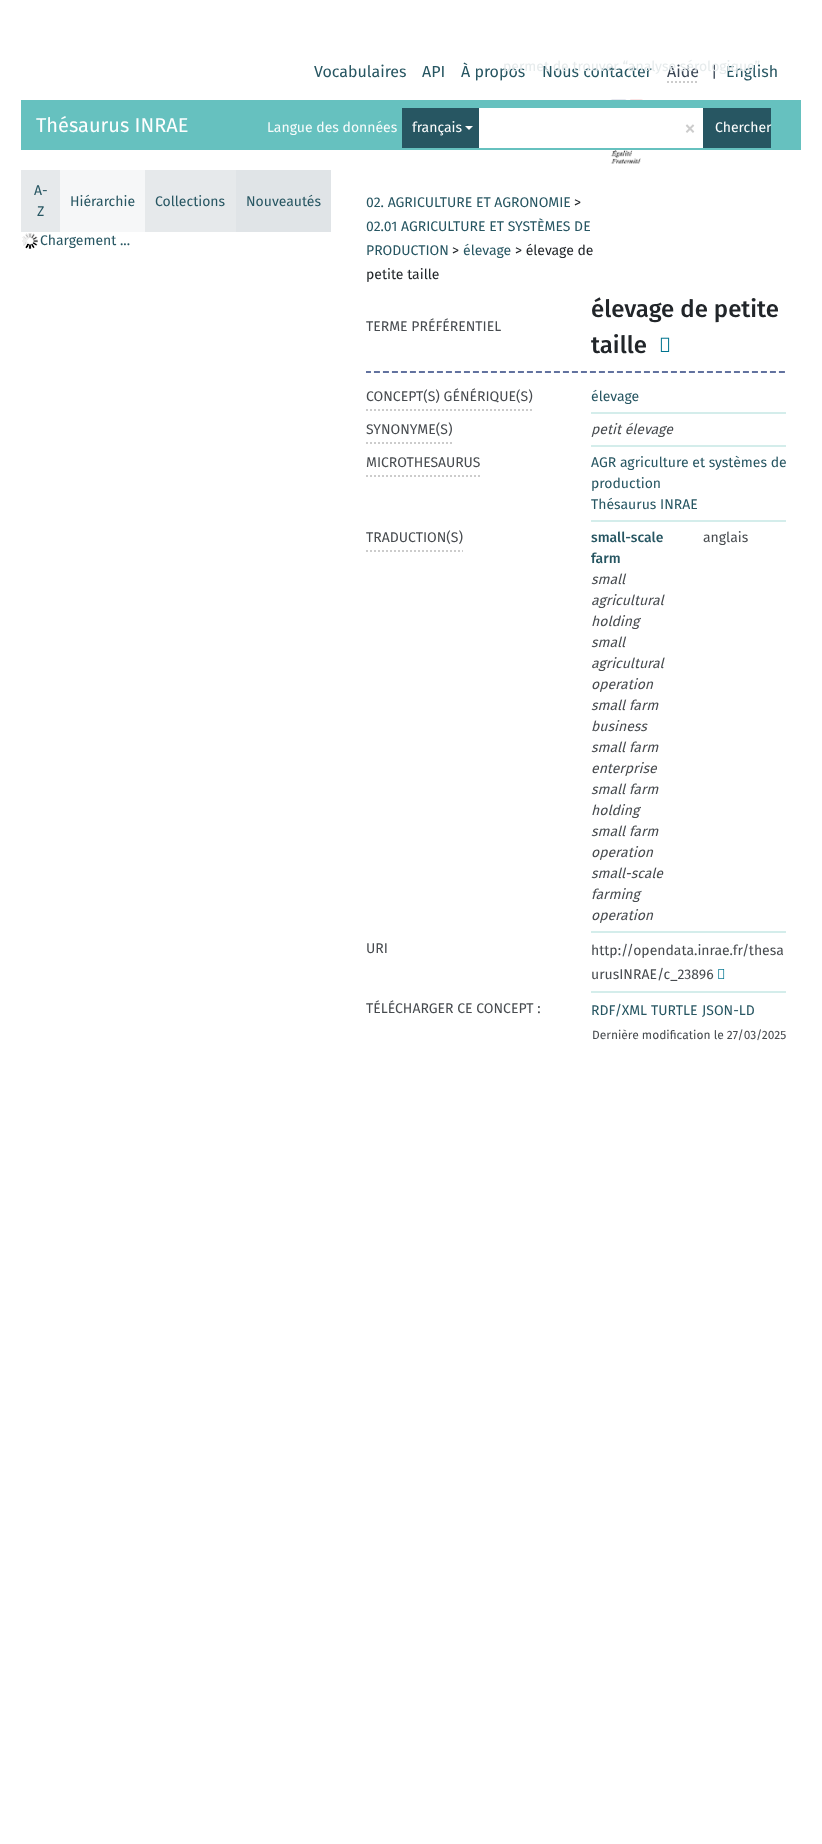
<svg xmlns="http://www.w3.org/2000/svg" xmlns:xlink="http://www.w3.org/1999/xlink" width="822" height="1844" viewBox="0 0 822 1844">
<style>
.cls-1{font:16px Fira Sans;fill:#275662}
.cls-2{font:16px Fira Sans;fill:#394554}
.cls-3{font:14px Fira Sans;fill:#e6ebec}
.cls-4{font:20px Fira Sans;fill:#fdfefe}
.cls-5{font:14px Fira Sans;fill:#f7fcfc}
.cls-6{font:14px Fira Sans;fill:#fdfefe}
.cls-7{font:24px Fira Sans;fill:#cccccc}
.cls-8{font:14px Fira Sans;fill:#275662}
.cls-9{font:14px Fira Sans;fill:#212529}
.cls-10{font:14px Fira Sans;fill:#474b4f}
.cls-11{font:500 24px Fira Sans;fill:#212529}
.cls-12{font:italic 14px Fira Sans;fill:#474b4f}
.cls-13{font:500 14px Fira Sans;fill:#275662}
.cls-14{font:12px Fira Sans;fill:#474b4f}
</style>
<rect width="100%" height="100%" fill="#ffffff"/>
<path fill="none" stroke="#cccccc" stroke-width="2" stroke-dasharray="2 2" d="M667 82H699"/>
<image xlink:href="image0.png" x="610" y="99" width="185" height="65"/>
<rect fill="#66c1bf" x="21" y="100" width="780" height="50"/>
<rect fill="#275662" x="402" y="108" width="77" height="40"/>
<path fill="#ffffff" d="M465 126H473L469 130Z"/>
<rect fill="#ffffff" x="479" y="108" width="224" height="40"/>
<rect fill="#275662" x="703" y="108" width="68" height="40"/>
<rect fill="#e0e4e7" x="236" y="170" width="95" height="62"/>
<rect fill="#e6e9eb" x="21" y="170" width="39" height="62"/>
<rect fill="#f6f7f8" x="60" y="170" width="85" height="62"/>
<rect fill="#e6e9eb" x="145" y="170" width="91" height="62"/>
<image xlink:href="image1.png" x="22" y="233" width="16" height="16"/>
<image xlink:href="image2.png" x="660" y="337" width="10" height="15"/>
<image xlink:href="image3.png" x="366" y="371" width="419" height="2"/>
<path fill="none" stroke="#cccccc" stroke-width="2" stroke-dasharray="2 2" d="M366 410H532"/>
<rect fill="#d4edeb" x="591" y="412" width="195" height="2"/>
<path fill="none" stroke="#cccccc" stroke-width="2" stroke-dasharray="2 2" d="M366 443H452"/>
<rect fill="#d4edeb" x="591" y="445" width="195" height="2"/>
<path fill="none" stroke="#cccccc" stroke-width="2" stroke-dasharray="2 2" d="M366 476H480"/>
<rect fill="#d4edeb" x="591" y="520" width="195" height="2"/>
<path fill="none" stroke="#cccccc" stroke-width="2" stroke-dasharray="2 2" d="M366 551H463"/>
<rect fill="#d4edeb" x="591" y="931" width="195" height="2"/>
<rect fill="#d4edeb" x="591" y="991" width="195" height="2"/>
<image xlink:href="image4.png" x="718" y="969" width="7" height="10"/>
<text class="cls-1" x="314" y="77">Vocabulaires</text>
<text class="cls-1" x="422" y="77">API</text>
<text class="cls-1" x="461" y="77">À propos</text>
<text class="cls-2" x="667" y="77">Aide</text>
<text class="cls-1" x="542" y="77">Nous contacter</text>
<text class="cls-2" x="711" y="77">|</text>
<text class="cls-1" x="726" y="77">English</text>
<text class="cls-3" x="503" y="71">permet de trouver “analyse sérologique”</text>
<text class="cls-4" x="36" y="132">Thésaurus INRAE</text>
<text class="cls-5" x="267" y="132">Langue des données</text>
<text class="cls-6" x="412" y="132">français</text>
<text class="cls-7" x="684" y="136">×</text>
<text class="cls-6" x="715" y="132">Chercher</text>
<text class="cls-8" x="34" y="195">A-</text>
<text class="cls-8" x="37" y="216">Z</text>
<text class="cls-8" x="70" y="206">Hiérarchie</text>
<text class="cls-8" x="155" y="206">Collections</text>
<text class="cls-8" x="246" y="206">Nouveautés</text>
<text class="cls-8" x="40" y="245">Chargement ...</text>
<text class="cls-8" x="366" y="207">02. AGRICULTURE ET AGRONOMIE</text>
<text class="cls-9" x="574" y="207">&gt;</text>
<text class="cls-8"><tspan x="366" y="231">02.01 AGRICULTURE ET SYSTÈMES DE</tspan><tspan x="366" y="255">PRODUCTION</tspan></text>
<text class="cls-9" x="452" y="255">&gt;</text>
<text class="cls-8" x="463" y="255">élevage</text>
<text class="cls-9" x="515" y="255">&gt; élevage de</text>
<text class="cls-9" x="366" y="279">petite taille</text>
<text class="cls-10" x="366" y="331">TERME PRÉFÉRENTIEL</text>
<text class="cls-11"><tspan x="591" y="317">élevage de petite</tspan><tspan x="591" y="353">taille</tspan></text>
<text class="cls-10" x="366" y="401">CONCEPT(S) GÉNÉRIQUE(S)</text>
<text class="cls-8" x="591" y="401">élevage</text>
<text class="cls-10" x="366" y="434">SYNONYME(S)</text>
<text class="cls-12" x="591" y="434">petit élevage</text>
<text class="cls-10" x="366" y="467">MICROTHESAURUS</text>
<text class="cls-8"><tspan x="591" y="467">AGR agriculture et systèmes de</tspan><tspan x="591" y="488">production</tspan><tspan x="591" y="509">Thésaurus INRAE</tspan></text>
<text class="cls-10" x="366" y="542">TRADUCTION(S)</text>
<text class="cls-13"><tspan x="591" y="542">small-scale</tspan><tspan x="591" y="563">farm</tspan></text>
<text class="cls-10" x="703" y="542">anglais</text>
<text class="cls-12"><tspan x="591" y="584">small</tspan><tspan x="591" y="605">agricultural</tspan><tspan x="591" y="626">holding</tspan><tspan x="591" y="647">small</tspan><tspan x="591" y="668">agricultural</tspan><tspan x="591" y="689">operation</tspan><tspan x="591" y="710">small farm</tspan><tspan x="591" y="731">business</tspan><tspan x="591" y="752">small farm</tspan><tspan x="591" y="773">enterprise</tspan><tspan x="591" y="794">small farm</tspan><tspan x="591" y="815">holding</tspan><tspan x="591" y="836">small farm</tspan><tspan x="591" y="857">operation</tspan><tspan x="591" y="878">small-scale</tspan><tspan x="591" y="899">farming</tspan><tspan x="591" y="920">operation</tspan></text>
<text class="cls-10" x="366" y="953">URI</text>
<text class="cls-10"><tspan x="591" y="955">http://opendata.inrae.fr/thesa</tspan><tspan x="591" y="979">urusINRAE/c_23896</tspan></text>
<text class="cls-10" x="366" y="1013">TÉLÉCHARGER CE CONCEPT :</text>
<text class="cls-8" x="591" y="1015">RDF/XML</text>
<text class="cls-8" x="651" y="1015">TURTLE</text>
<text class="cls-8" x="702" y="1015">JSON-LD</text>
<text class="cls-14" x="592" y="1039">Dernière modification le 27/03/2025</text>
</svg>
